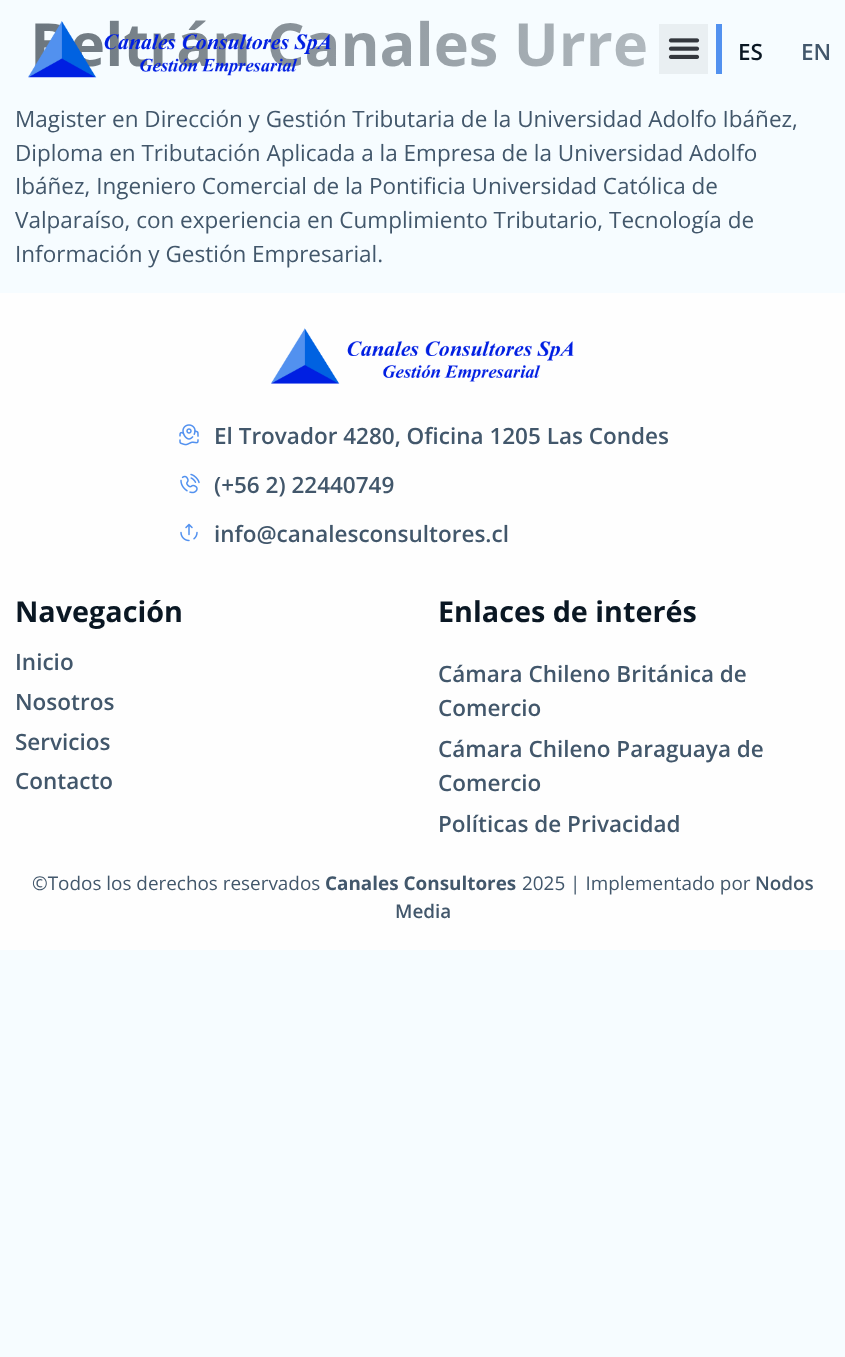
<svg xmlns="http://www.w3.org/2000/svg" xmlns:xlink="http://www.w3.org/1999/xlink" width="845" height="1357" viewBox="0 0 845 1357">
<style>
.cls-1{font:bold 59.5px Open Sans;fill:#0a1723}
.cls-2{font:22.5px Open Sans;fill:#42576b}
.cls-3{font:600 22.5px Open Sans;fill:#0a1723}
.cls-4{font:600 22.5px Open Sans;fill:#42576b}
.cls-5{font:bold 28.75px Open Sans;fill:#0a1723}
.cls-6{font:18.9px Open Sans;fill:#42576b}
.cls-7{font:bold 18.9px Open Sans;fill:#42576b}
.cls-8{font:600 18.9px Open Sans;fill:#42576b}
</style>
<defs>
<linearGradient id="g1" gradientUnits="userSpaceOnUse" x1="0" y1="49" x2="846" y2="49"><stop offset="0" stop-color="#f6fcff" stop-opacity="0.4"/><stop offset="1" stop-color="#f6fcff" stop-opacity="0.8"/></linearGradient>
</defs>
<rect width="100%" height="100%" fill="#f6fcff"/>
<rect fill="#000000" fill-opacity="0.05" x="659" y="24" width="49" height="50"/>
<image xlink:href="image1.png" x="668" y="38" width="32" height="21"/>
<rect fill="#5291ef" x="716" y="24" width="6" height="50"/>
<rect fill="#fefefe" x="0" y="293" width="845" height="657"/>
<image xlink:href="image2.png" x="271" y="328" width="303" height="56"/>
<image xlink:href="image3.png" x="179" y="424" width="20" height="22"/>
<image xlink:href="image4.png" x="180" y="473" width="20" height="21"/>
<image xlink:href="image5.png" x="180" y="523" width="18" height="19"/>
<text class="cls-1" x="30" y="66">Beltrán Canales Urre</text>
<text class="cls-2"><tspan x="15" y="127">Magister en Dirección y Gestión Tributaria de la Universidad Adolfo Ibáñez,</tspan><tspan x="15" y="161">Diploma en Tributación Aplicada a la Empresa de la Universidad Adolfo</tspan><tspan x="15" y="194">Ibáñez, Ingeniero Comercial de la Pontificia Universidad Católica de</tspan><tspan x="15" y="228">Valparaíso, con experiencia en Cumplimiento Tributario, Tecnología de</tspan><tspan x="15" y="262">Información y Gestión Empresarial.</tspan></text>
<rect fill="url(#g1)" x="35" y="20" width="611" height="47"/>
<image xlink:href="image0.png" x="28" y="21" width="303" height="57"/>
<text class="cls-3" x="738" y="60">ES</text>
<text class="cls-4" x="801" y="60">EN</text>
<text class="cls-4" x="214" y="444">El Trovador 4280, Oficina 1205 Las Condes</text>
<text class="cls-4" x="214" y="493">(+56 2) 22440749</text>
<text class="cls-4" x="214" y="542">info@canalesconsultores.cl</text>
<text class="cls-5" x="15" y="622">Navegación</text>
<text class="cls-4"><tspan x="15" y="670">Inicio</tspan><tspan x="15" y="710">Nosotros</tspan><tspan x="15" y="750">Servicios</tspan><tspan x="15" y="789">Contacto</tspan></text>
<text class="cls-5" x="438" y="622">Enlaces de interés</text>
<text class="cls-4"><tspan x="438" y="682">Cámara Chileno Británica de</tspan><tspan x="438" y="716">Comercio</tspan><tspan x="438" y="757">Cámara Chileno Paraguaya de</tspan><tspan x="438" y="791">Comercio</tspan><tspan x="438" y="832">Políticas de Privacidad</tspan></text>
<text class="cls-6" x="32" y="890">©Todos los derechos reservados</text>
<text class="cls-7" x="325" y="890">Canales Consultores</text>
<text class="cls-6" x="522" y="890">2025 | Implementado por</text>
<text class="cls-8" x="755" y="890">Nodos</text>
<text class="cls-8" x="395" y="918">Media</text>
</svg>
